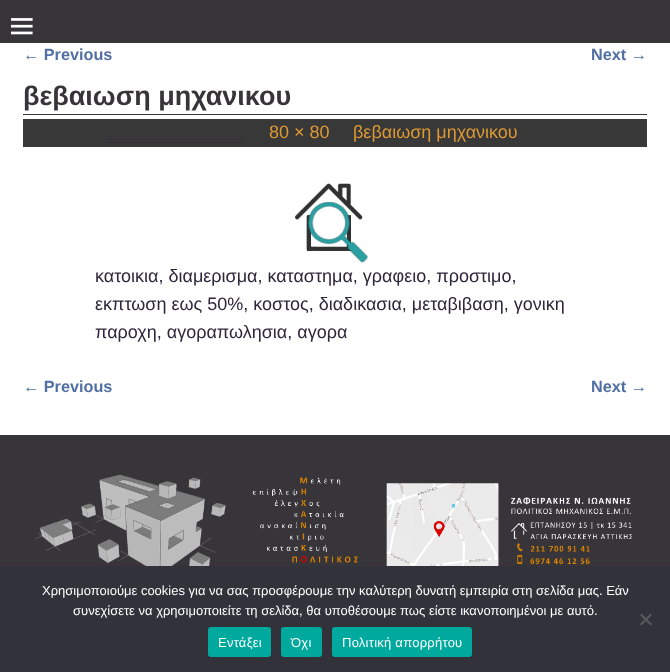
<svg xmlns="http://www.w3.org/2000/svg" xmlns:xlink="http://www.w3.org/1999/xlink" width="670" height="672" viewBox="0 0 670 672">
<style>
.cls-1{font:bold 16.25px Liberation Sans;fill:#516fa3}
.cls-2{font:bold 27px Liberation Sans;fill:#37353a}
.cls-3{font:18px Liberation Sans;fill:#dd9933}
.cls-4{font:18px Liberation Sans;fill:#2f263a}
.cls-5{font:13px Liberation Sans;fill:#ffffff}
.cls-6{font:13px Liberation Sans;letter-spacing:0.25px;fill:#ffffff}
</style>
<rect width="100%" height="100%" fill="#ffffff"/>
<rect fill="#37353a" x="0" y="0" width="670" height="43"/>
<image xlink:href="image0.png" x="11" y="18" width="22" height="17"/>
<rect fill="#37353a" x="23" y="114" width="624" height="1"/>
<rect fill="#383838" x="23" y="119" width="624" height="28"/>
<path fill="none" stroke="#2f263a" stroke-dasharray="1 1" d="M107 139.5H243.5"/>
<path fill="none" stroke="#2f263a" stroke-dasharray="1 1" d="M107 142.5H243"/>
<image xlink:href="image1.png" x="295" y="183" width="73" height="80"/>
<rect fill="#37353a" x="0" y="435" width="670" height="131"/>
<image xlink:href="image2.png" x="21" y="474" width="612" height="92"/>
<rect fill="#32323a" x="0" y="566" width="670" height="106"/>
<path fill="#59595d" d="M650.5 613.5L652 615L641.5 625.5L640 624Z"/>
<path fill="#59595d" d="M640 615L641.5 613.5L652 624L650.5 625.5Z"/>
<rect fill="#00a99d" x="208" y="627" width="63" height="30" rx="3"/>
<rect fill="#00a99d" x="281" y="627" width="41" height="30" rx="3"/>
<rect fill="#00a99d" x="332" y="627" width="140" height="30" rx="3"/>
<text class="cls-1" x="23" y="60">← Previous</text>
<text class="cls-1" x="591" y="60">Next →</text>
<text class="cls-2" x="23" y="105">βεβαιωση μηχανικου</text>
<text class="cls-3" x="269" y="138">80 × 80</text>
<text class="cls-3" x="353" y="138">βεβαιωση μηχανικου</text>
<text class="cls-4"><tspan x="95" y="282">κατοικια, διαμερισμα, καταστημα, γραφειο, προστιμο,</tspan><tspan x="95" y="310">εκπτωση εως 50%, κοστος, διαδικασια, μεταβιβαση, γονικη</tspan><tspan x="95" y="338">παροχη, αγοραπωλησια, αγορα</tspan></text>
<text class="cls-1" x="23" y="392">← Previous</text>
<text class="cls-1" x="591" y="392">Next →</text>
<text class="cls-5" x="42" y="595">Χρησιμοποιούμε cookies για να σας προσφέρουμε την καλύτερη δυνατή εμπειρία στη σελίδα μας. Εάν</text>
<text class="cls-5" x="73" y="615">συνεχίσετε να χρησιμοποιείτε τη σελίδα, θα υποθέσουμε πως είστε ικανοποιημένοι με αυτό.</text>
<text class="cls-6" x="218" y="647">Εντάξει</text>
<text class="cls-6" x="291" y="647">Όχι</text>
<text class="cls-6" x="342" y="647">Πολιτική απορρήτου</text>
</svg>
